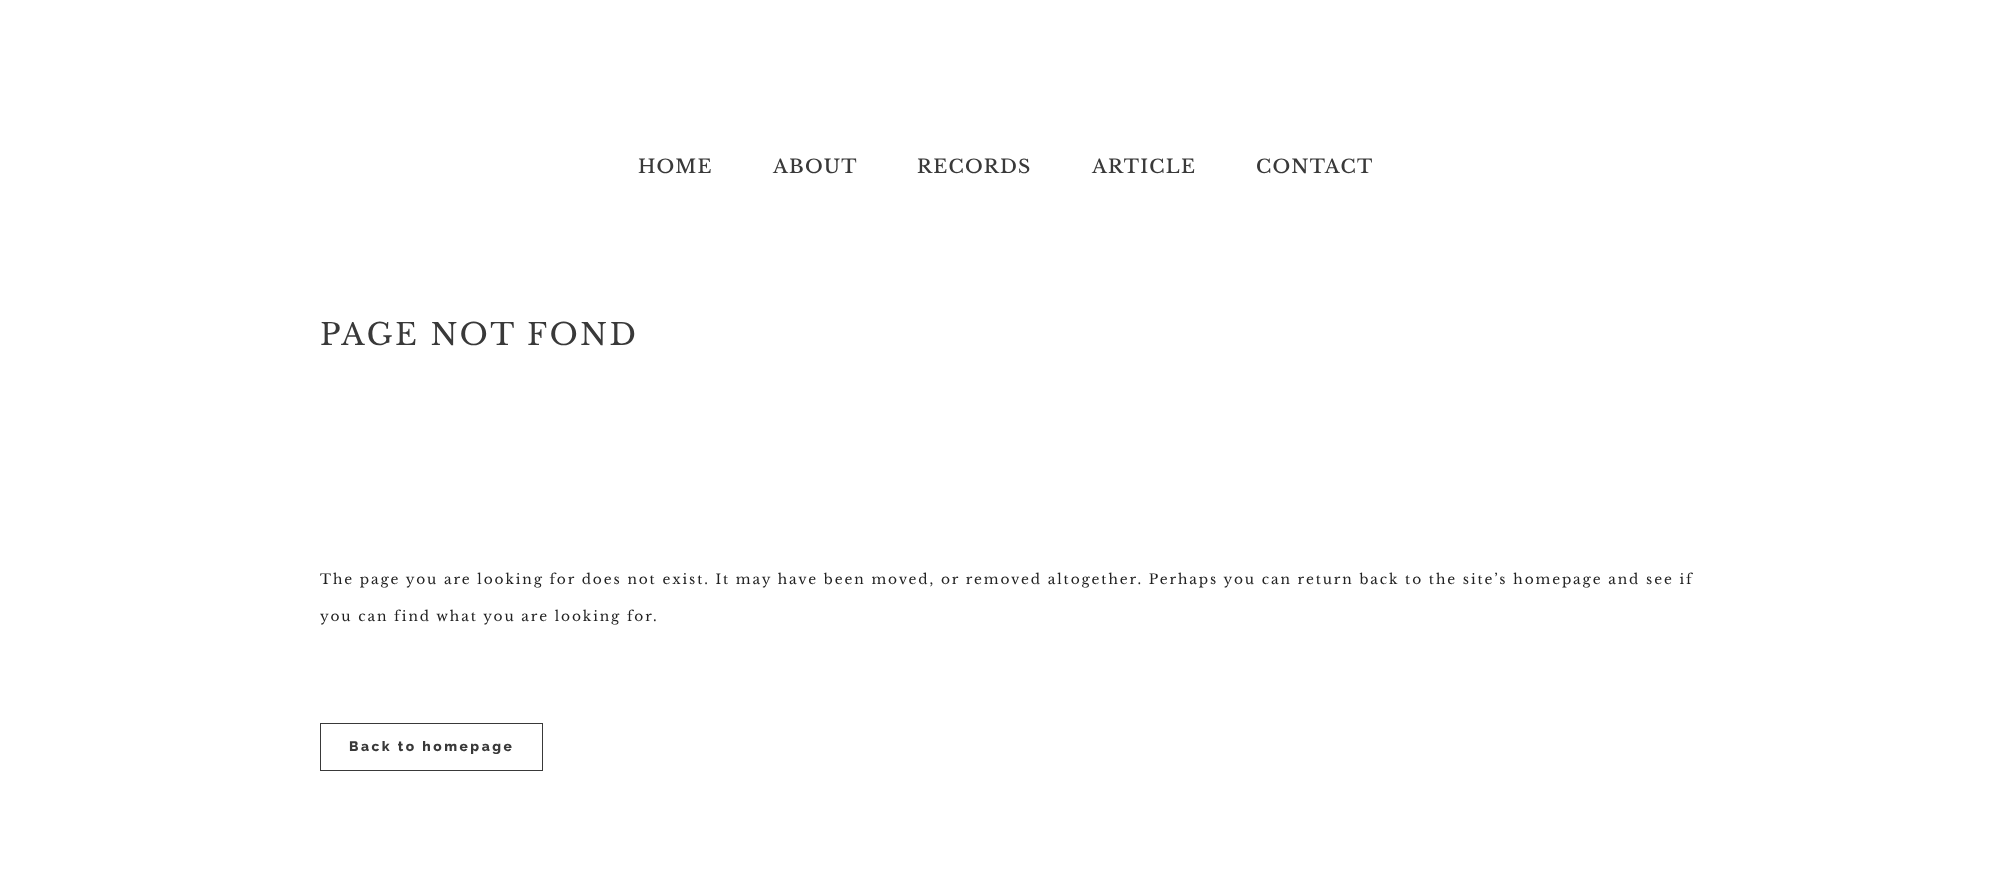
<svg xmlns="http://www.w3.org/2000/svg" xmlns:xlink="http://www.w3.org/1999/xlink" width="2014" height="896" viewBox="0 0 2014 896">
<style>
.cls-1{font:500 18.75px Libre Baskerville;letter-spacing:1.25px;fill:#393939}
.cls-2{font:30px Libre Baskerville;letter-spacing:2.5px;fill:#393939}
.cls-3{font:13.75px Libre Baskerville;letter-spacing:1.88px;fill:#222222}
.cls-4{font:800 13.75px Raleway;letter-spacing:2.5px;fill:#393939}
</style>
<rect width="100%" height="100%" fill="#ffffff"/>
<rect fill="none" stroke="#393939" x="320.5" y="723.5" width="222" height="47"/>
<text class="cls-1" x="638" y="173">HOME</text>
<text class="cls-1" x="773" y="173">ABOUT</text>
<text class="cls-1" x="917" y="173">RECORDS</text>
<text class="cls-1" x="1092" y="173">ARTICLE</text>
<text class="cls-1" x="1256" y="173">CONTACT</text>
<text class="cls-2" x="320" y="345">PAGE NOT FOND</text>
<text class="cls-3" x="320" y="584">The page you are looking for does not exist. It may have been moved, or removed altogether. Perhaps you can return back to the site’s homepage and see if</text>
<text class="cls-3" x="320" y="621">you can find what you are looking for.</text>
<text class="cls-4" x="349" y="751">Back to homepage</text>
</svg>
